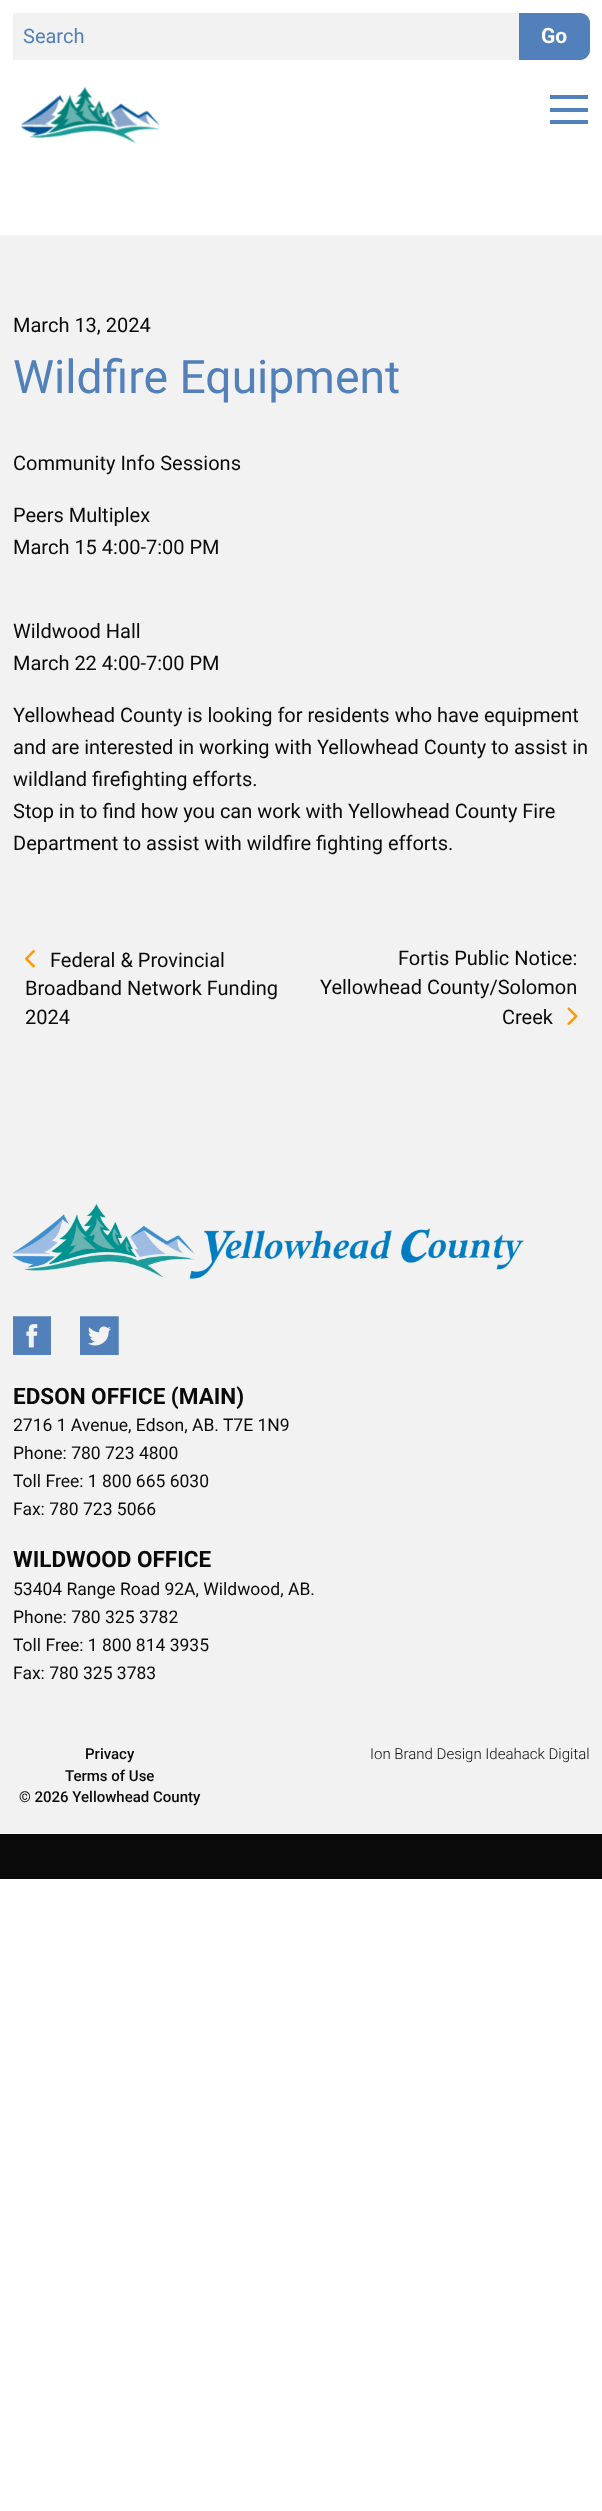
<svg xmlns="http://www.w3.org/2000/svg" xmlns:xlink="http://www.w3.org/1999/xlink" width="602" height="2511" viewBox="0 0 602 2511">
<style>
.cls-1{font:20px Roboto;fill:#5180ba}
.cls-2{font:bold 21px Roboto;fill:#fefefe}
.cls-3{font:20px Roboto;fill:#0a0a0a}
.cls-4{font:46.25px Roboto;fill:#5180ba}
.cls-5{font:bold 22.5px Roboto;fill:#0a0a0a}
.cls-6{font:17.5px Roboto;fill:#0a0a0a}
.cls-7{font:500 15px Roboto;fill:#0a0a0a}
.cls-8{font:300 15px Roboto;fill:#0a0a0a}
</style>
<rect width="100%" height="100%" fill="#ffffff"/>
<rect fill="#f2f2f2" x="13" y="13" width="506" height="47"/>
<path fill="#5180ba" d="M519 13H580C585.5 13 590 17.5 590 23V50C590 55.5 585.5 60 580 60H519Z"/>
<image xlink:href="image0.png" x="21" y="86" width="139" height="58"/>
<rect fill="#5180ba" x="550" y="120" width="38" height="4"/>
<rect fill="#5180ba" x="550" y="108" width="38" height="4"/>
<rect fill="#5180ba" x="550" y="95" width="38" height="4"/>
<rect fill="#f2f2f2" x="0" y="235" width="602" height="1599"/>
<image xlink:href="image1.png" x="25" y="950" width="10" height="18"/>
<image xlink:href="image2.png" x="567" y="1007" width="11" height="18"/>
<rect fill="#0a0a0a" x="0" y="1834" width="602" height="45"/>
<image xlink:href="image3.png" x="12" y="1203" width="512" height="76"/>
<image xlink:href="image4.png" x="13" y="1316" width="38" height="39"/>
<image xlink:href="image5.png" x="80" y="1316" width="39" height="39"/>
<text class="cls-1" x="23" y="43">Search</text>
<text class="cls-2" x="541" y="43">Go</text>
<text class="cls-3" x="13" y="332">March 13, 2024</text>
<text class="cls-4" x="13" y="393">Wildfire Equipment</text>
<text class="cls-3" x="13" y="470">Community Info Sessions</text>
<text class="cls-3"><tspan x="13" y="522">Peers Multiplex</tspan><tspan x="13" y="554">March 15 4:00-7:00 PM</tspan></text>
<text class="cls-3"><tspan x="13" y="638">Wildwood Hall</tspan><tspan x="13" y="670">March 22 4:00-7:00 PM</tspan></text>
<text class="cls-3"><tspan x="13" y="722">Yellowhead County is looking for residents who have equipment</tspan><tspan x="13" y="754">and are interested in working with Yellowhead County to assist in</tspan><tspan x="13" y="786">wildland firefighting efforts.</tspan><tspan x="13" y="818">Stop in to find how you can work with Yellowhead County Fire</tspan><tspan x="13" y="850">Department to assist with wildfire fighting efforts.</tspan></text>
<text class="cls-3" x="50" y="967">Federal &amp; Provincial</text>
<text class="cls-3"><tspan x="25" y="995">Broadband Network Funding</tspan><tspan x="25" y="1024">2024</tspan></text>
<text class="cls-3" x="398" y="965">Fortis Public Notice:</text>
<text class="cls-3" x="320" y="994">Yellowhead County/Solomon</text>
<text class="cls-3" x="502" y="1024">Creek</text>
<text class="cls-5" x="13" y="1404">EDSON OFFICE (MAIN)</text>
<text class="cls-6"><tspan x="13" y="1431">2716 1 Avenue, Edson, AB. T7E 1N9</tspan><tspan x="13" y="1459">Phone: 780 723 4800</tspan><tspan x="13" y="1487">Toll Free: 1 800 665 6030</tspan><tspan x="13" y="1515">Fax: 780 723 5066</tspan></text>
<text class="cls-5" x="13" y="1567">WILDWOOD OFFICE</text>
<text class="cls-6"><tspan x="13" y="1595">53404 Range Road 92A, Wildwood, AB.</tspan><tspan x="13" y="1623">Phone: 780 325 3782</tspan><tspan x="13" y="1651">Toll Free: 1 800 814 3935</tspan><tspan x="13" y="1679">Fax: 780 325 3783</tspan></text>
<text class="cls-7" x="85" y="1759">Privacy</text>
<text class="cls-7" x="65" y="1781">Terms of Use</text>
<text class="cls-7" x="19" y="1802">© 2026 Yellowhead County</text>
<text class="cls-8" x="370" y="1759">Ion Brand Design Ideahack Digital</text>
</svg>
